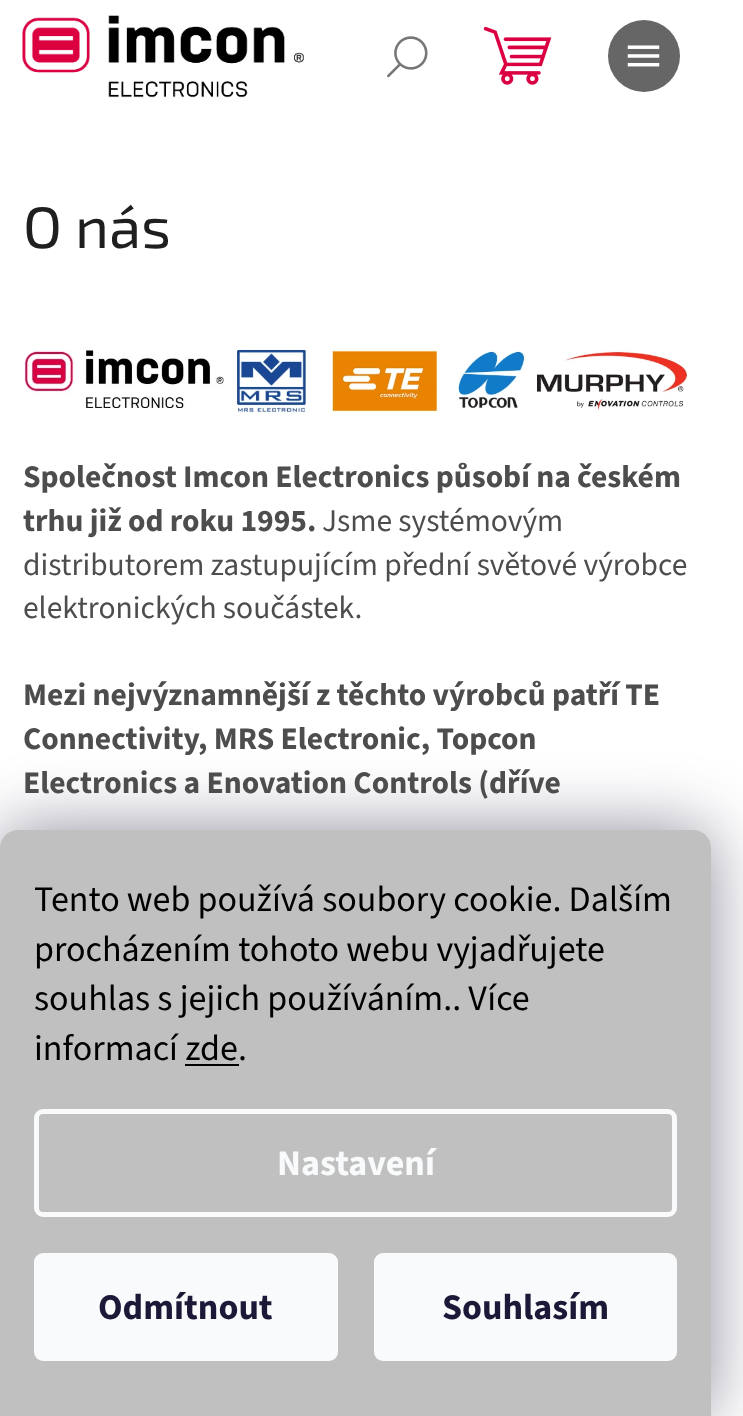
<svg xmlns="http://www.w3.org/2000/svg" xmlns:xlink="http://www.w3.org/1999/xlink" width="743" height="1416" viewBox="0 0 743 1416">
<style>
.cls-1{font:58.5px 'Exo 2';fill:#1f1f1f}
.cls-2{font:bold 31.5px 'Source Sans 3';fill:#4d4d4d}
.cls-3{font:31.5px 'Source Sans 3';fill:#4d4d4d}
.cls-4{font:36px 'Source Sans 3';fill:#000000}
.cls-5{font:bold 36px 'Source Sans 3';fill:#f8fafb}
.cls-6{font:bold 36px 'Source Sans 3';fill:#1a1937}
</style>
<rect width="100%" height="100%" fill="#ffffff"/>
<image xlink:href="image0.png" x="22" y="15" width="282" height="83"/>
<image xlink:href="image1.png" x="483" y="26" width="69" height="59"/>
<image xlink:href="image2.png" x="387" y="36" width="41" height="42"/>
<circle fill="#666666" cx="644" cy="56" r="36"/>
<image xlink:href="image3.png" x="627" y="45" width="33" height="22"/>
<image xlink:href="image4.png" x="24" y="349" width="664" height="64"/>
<rect fill="#1b1939" fill-opacity="0.5" filter="blur(34px)" x="0" y="830" width="711" height="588" rx="18"/>
<path fill="#c0c0c0" d="M18 830H693C703 830 711 838 711 848V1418H0V848C0 838 8 830 18 830Z"/>
<rect fill="#000000" x="185" y="1064" width="54" height="2"/>
<rect fill="none" stroke="#f8fafb" stroke-width="5" x="36.5" y="1111.5" width="638" height="103" rx="6.5"/>
<rect fill="#f8fafb" x="34" y="1253" width="304" height="108" rx="9"/>
<rect fill="#f8fafb" x="374" y="1253" width="303" height="108" rx="9"/>
<text class="cls-1" x="23" y="248">O nás</text>
<text class="cls-2"><tspan x="23" y="487">Společnost Imcon Electronics působí na českém</tspan><tspan x="23" y="531">trhu již od roku 1995.</tspan></text>
<text class="cls-3" x="322" y="531">Jsme systémovým</text>
<text class="cls-3"><tspan x="23" y="575">distributorem zastupujícím přední světové výrobce</tspan><tspan x="23" y="618">elektronických součástek.</tspan></text>
<text class="cls-2"><tspan x="23" y="705">Mezi nejvýznamnější z těchto výrobců patří TE</tspan><tspan x="23" y="749">Connectivity, MRS Electronic, Topcon</tspan><tspan x="23" y="793">Electronics a Enovation Controls (dříve</tspan></text>
<text class="cls-4"><tspan x="34" y="911">Tento web používá soubory cookie. Dalším</tspan><tspan x="34" y="961">procházením tohoto webu vyjadřujete</tspan><tspan x="34" y="1010">souhlas s jejich používáním.. Více</tspan><tspan x="34" y="1060">informací zde.</tspan></text>
<text class="cls-5" x="277" y="1175">Nastavení</text>
<text class="cls-6" x="98" y="1319">Odmítnout</text>
<text class="cls-6" x="442" y="1319">Souhlasím</text>
</svg>
